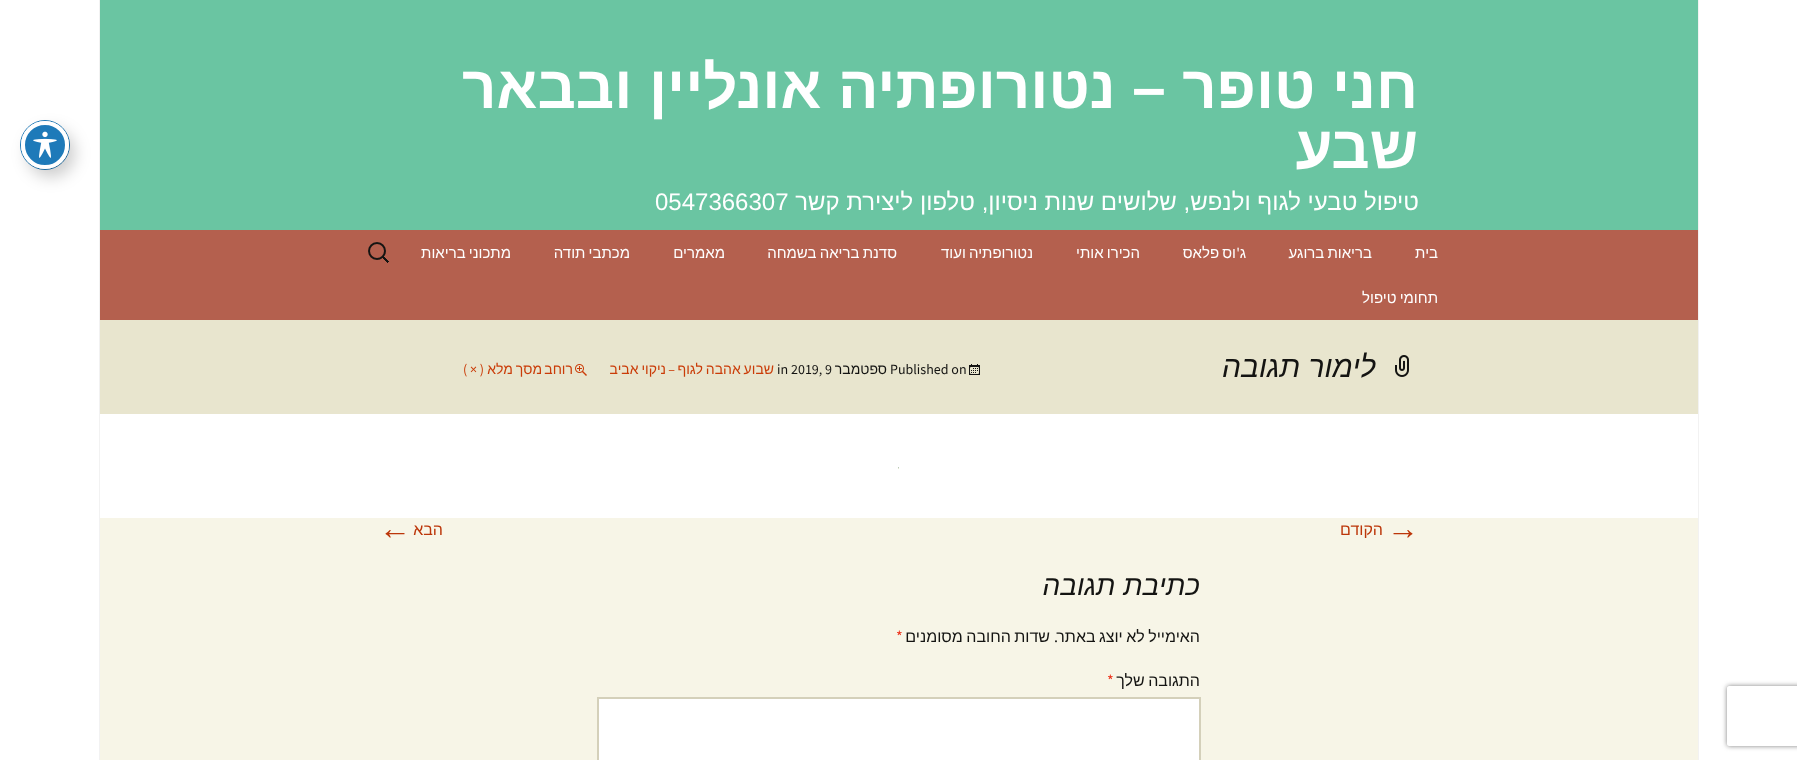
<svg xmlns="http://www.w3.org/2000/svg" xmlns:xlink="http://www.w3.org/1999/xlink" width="1797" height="760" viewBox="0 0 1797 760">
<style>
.cls-1{font:bold 60px Liberation Sans;direction:rtl;fill:#ffffff}
.cls-2{font:24px Liberation Sans;direction:rtl;fill:#ffffff}
.cls-3{font:24px Liberation Sans;fill:#ffffff}
.cls-4{font:15px Liberation Sans;direction:rtl;fill:#ffffff}
.cls-5{font:15px Source Sans Pro;direction:rtl;fill:#ffffff}
.cls-6{font:italic 30px Liberation Sans;direction:rtl;fill:#141412}
.cls-7{font:14px Source Sans Pro;fill:#141412}
.cls-8{font:14px Liberation Sans;direction:rtl;fill:#141412}
.cls-9{font:14px Liberation Sans;direction:rtl;fill:#ca3c08}
.cls-10{font:14px Source Sans Pro;direction:rtl;fill:#ca3c08}
.cls-11{font:32px Liberation Sans;fill:#bc360a}
.cls-12{font:16px Liberation Sans;direction:rtl;fill:#bc360a}
.cls-13{font:italic 28px Liberation Sans;direction:rtl;fill:#141412}
.cls-14{font:16px Liberation Sans;direction:rtl;fill:#141412}
.cls-15{font:16px Source Sans Pro;direction:rtl;fill:#141412}
.cls-16{font:16px Source Sans Pro;fill:#ed331c}
</style>
<defs>
<clipPath id="clip1"><path d="M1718 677H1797V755H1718ZM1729 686H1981C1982 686 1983 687 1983 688V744C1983 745 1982 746 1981 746H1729C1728 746 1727 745 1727 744V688C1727 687 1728 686 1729 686Z" clip-rule="evenodd"/></clipPath>
</defs>
<rect width="100%" height="100%" fill="#ffffff"/>
<rect fill="#f2f2f2" x="1698" y="0" width="1" height="760"/>
<rect fill="#f2f2f2" x="99" y="0" width="1" height="760"/>
<rect fill="#6ac5a2" x="100" y="0" width="1598" height="230"/>
<rect fill="#b4604e" x="100" y="230" width="1598" height="90"/>
<image xlink:href="image0.png" x="368" y="242" width="21" height="21"/>
<rect fill="#e8e5ce" x="100" y="320" width="1598" height="94"/>
<image xlink:href="image1.png" x="1395" y="355" width="14" height="22"/>
<image xlink:href="image2.png" x="969" y="364" width="11" height="11"/>
<image xlink:href="image3.png" x="575" y="364" width="12" height="12"/>
<image xlink:href="image4.png" x="898" y="467" width="1" height="2"/>
<rect fill="#f7f5e7" x="100" y="518" width="1598" height="242"/>
<rect fill="#ffffff" stroke="#d4d0ba" stroke-width="2" x="598" y="698" width="602" height="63"/>
<circle fill="none" stroke="#1e7ab9" cx="45" cy="145" r="24.5"/>
<rect fill="#000000" fill-opacity="0.2" filter="blur(8px)" x="27" y="129" width="48" height="48" rx="24"/>
<circle fill="#1e7ab9" stroke="#ffffff" stroke-width="4" cx="45" cy="145" r="22"/>
<image xlink:href="image5.png" x="33" y="131" width="24" height="27"/>
<g clip-path="url(#clip1)">
<rect fill="#808080" filter="blur(2.5px)" x="1727" y="686" width="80" height="60" rx="2"/>
</g>
<text class="cls-1"><tspan x="1418" y="108">חני טופר – נטורופתיה אונליין ובבאר</tspan><tspan x="1418" y="168">שבע</tspan></text>
<text class="cls-2" x="1419" y="210">טיפול טבעי לגוף ולנפש, שלושים שנות ניסיון, טלפון ליצירת קשר</text>
<text class="cls-3" x="655" y="210">0547366307</text>
<text class="cls-4" x="1438" y="258">בית</text>
<text class="cls-4" x="1372" y="258" word-spacing="-1">בריאות ברוגע</text>
<text class="cls-4" x="1246" y="258">ג</text>
<text class="cls-5" x="1240" y="258">'</text>
<text class="cls-4" x="1236" y="258" word-spacing="-1">וס פלאס</text>
<text class="cls-4" x="1140" y="258" word-spacing="-1">הכירו אותי</text>
<text class="cls-4" x="1033" y="258" word-spacing="-1">נטורופתיה ועוד</text>
<text class="cls-4" x="897" y="258" word-spacing="-1">סדנת בריאה בשמחה</text>
<text class="cls-4" x="725" y="258">מאמרים</text>
<text class="cls-4" x="630" y="258" word-spacing="-1">מכתבי תודה</text>
<text class="cls-4" x="511" y="258" word-spacing="-1">מתכוני בריאות</text>
<text class="cls-4" x="1438" y="303" word-spacing="-1">תחומי טיפול</text>
<text class="cls-6" x="1376" y="377">לימור תגובה</text>
<text class="cls-7" x="890" y="374">Published on</text>
<text class="cls-8" x="887" y="374">ספטמבר</text>
<text class="cls-7" x="791" y="374">2019, 9</text>
<text class="cls-7" x="777" y="374">in</text>
<text class="cls-9" x="774" y="374" word-spacing="-1">שבוע אהבה לגוף</text>
<text class="cls-10" x="675" y="374">–</text>
<text class="cls-9" x="666" y="374" word-spacing="-1">ניקוי אביב</text>
<text class="cls-9" x="573" y="374">רוחב</text>
<text class="cls-9" x="542" y="374">מסך</text>
<text class="cls-9" x="513" y="374">מלא</text>
<text class="cls-10" x="484" y="374">( × )</text>
<text class="cls-11" x="1387" y="539">→</text>
<text class="cls-12" x="1383" y="535">הקודם</text>
<text class="cls-12" x="443" y="535">הבא</text>
<text class="cls-11" x="379" y="539">←</text>
<text class="cls-13" x="1200" y="595">כתיבת תגובה</text>
<text class="cls-14" x="1200" y="642" word-spacing="-1">האימייל לא יוצג באתר</text>
<text class="cls-15" x="1058" y="642">.</text>
<text class="cls-14" x="1050" y="642" word-spacing="-1">שדות החובה מסומנים</text>
<text class="cls-16" x="896" y="642">*</text>
<text class="cls-14" x="1200" y="686" word-spacing="-1">התגובה שלך</text>
<text class="cls-16" x="1107" y="686">*</text>
</svg>
